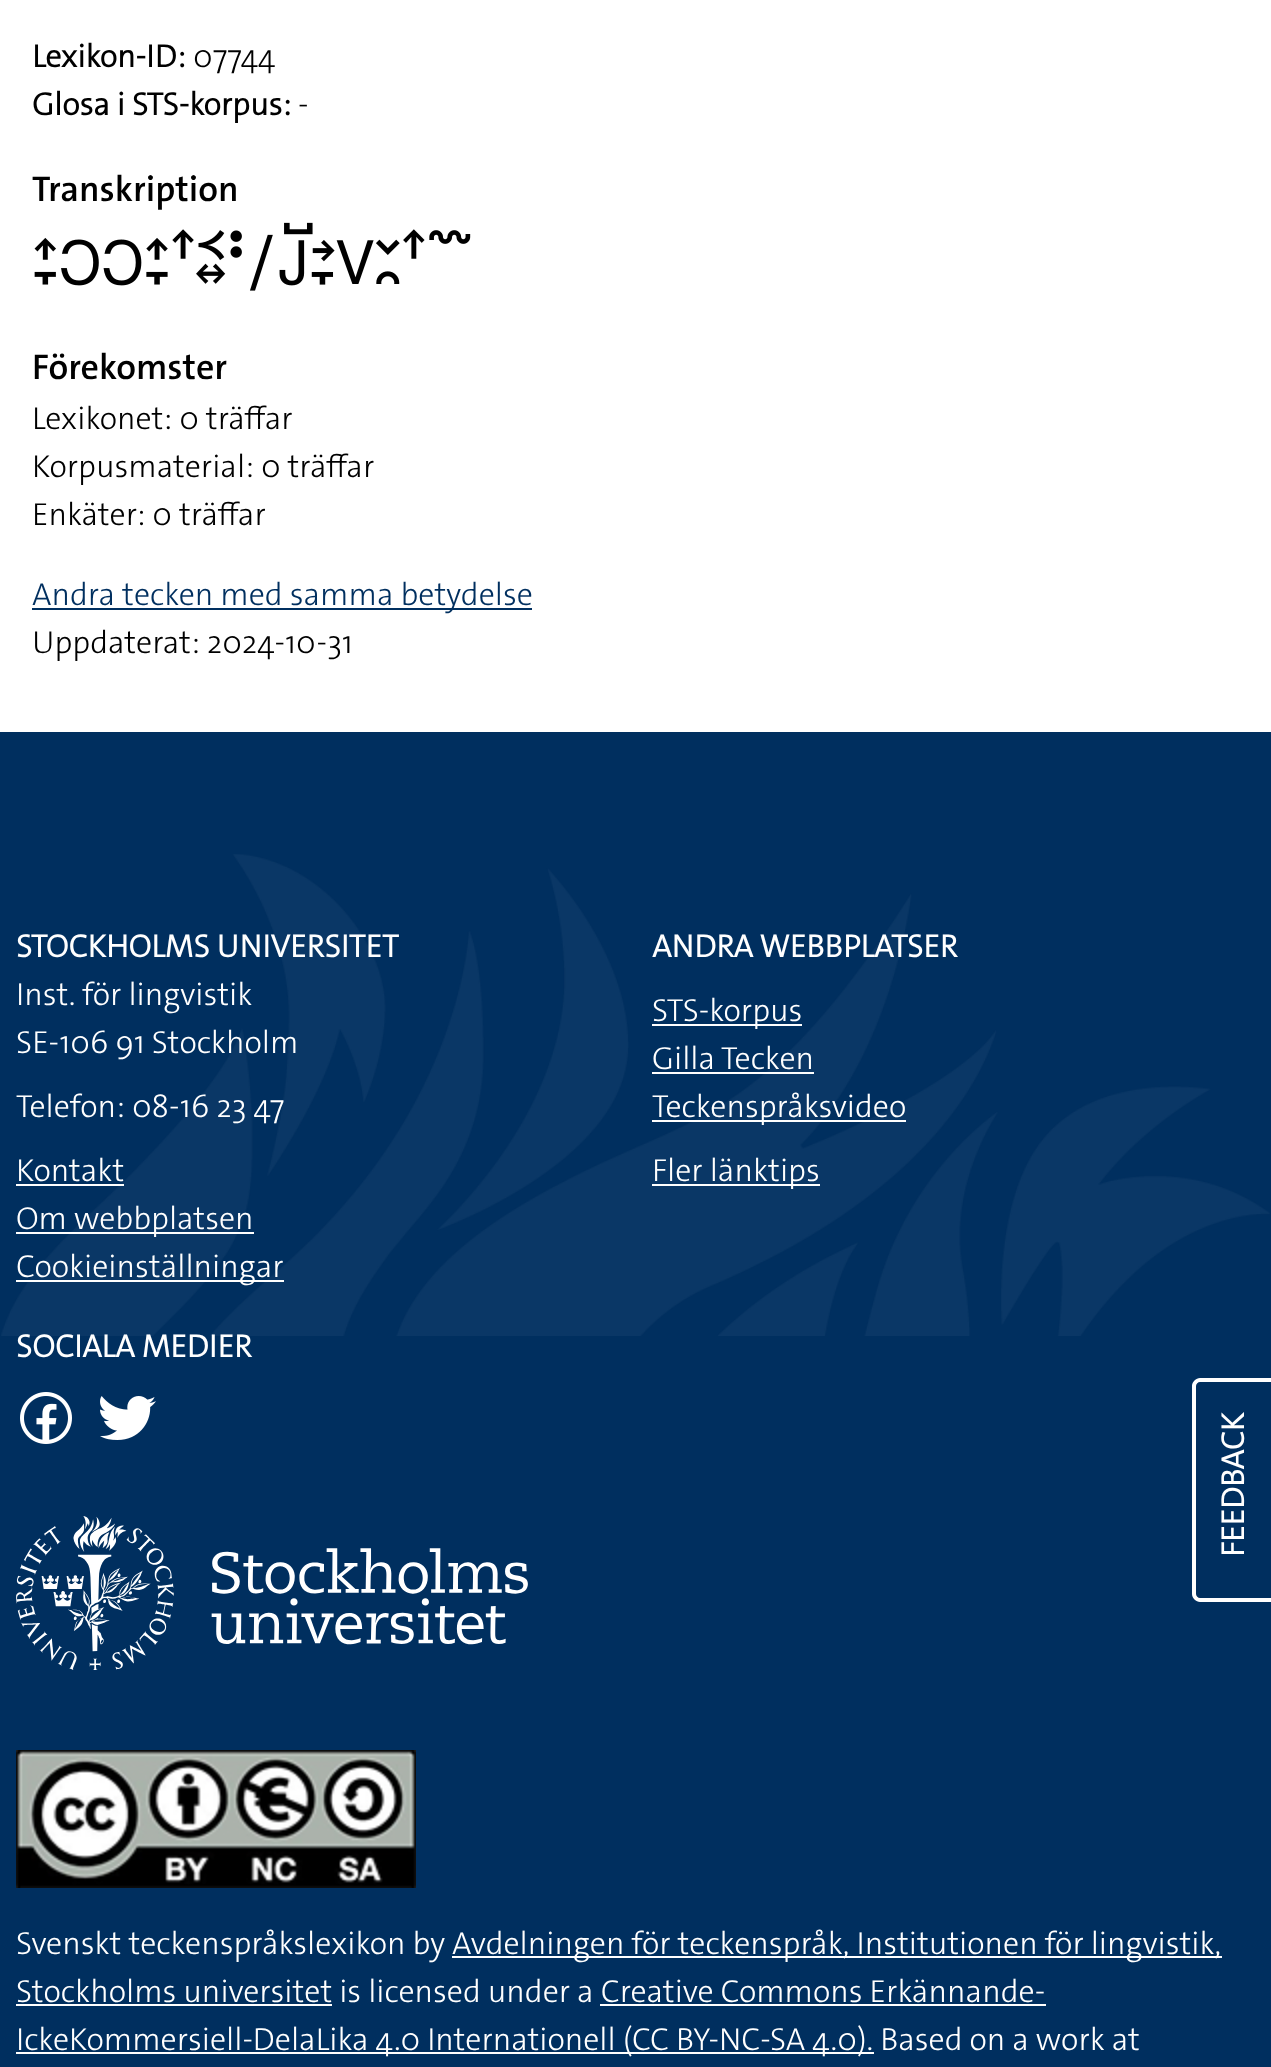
<svg xmlns="http://www.w3.org/2000/svg" xmlns:xlink="http://www.w3.org/1999/xlink" width="1271" height="2067" viewBox="0 0 1271 2067">
<style>
.cls-1{font:bold 32px 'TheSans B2';fill:#000000}
.cls-2{font:300 32px 'TheSans B2';fill:#000000}
.cls-3{font:600 36px 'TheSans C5';fill:#000000}
.cls-4{font:300 32px 'TheSans B2';fill:#002f5f}
.cls-5{font:bold 32px 'TheSans B2';fill:#ffffff}
.cls-6{font:300 32px 'TheSans B2';fill:#ffffff}
</style>
<rect width="100%" height="100%" fill="#ffffff"/>
<image xlink:href="image0.png" x="34" y="222" width="437" height="69"/>
<rect fill="#002f5f" x="32" y="608" width="500" height="2"/>
<rect fill="#002f5f" x="0" y="732" width="1271" height="1335"/>
<image xlink:href="image1.png" x="1" y="854" width="1269" height="482"/>
<rect fill="#ffffff" x="16" y="1184" width="108" height="2"/>
<rect fill="#ffffff" x="16" y="1232" width="238" height="2"/>
<rect fill="#ffffff" x="16" y="1280" width="268" height="2"/>
<rect fill="#ffffff" x="652" y="1024" width="150" height="2"/>
<rect fill="#ffffff" x="652" y="1072" width="162" height="2"/>
<rect fill="#ffffff" x="652" y="1120" width="254" height="2"/>
<rect fill="#ffffff" x="652" y="1184" width="168" height="2"/>
<image xlink:href="image2.png" x="20" y="1392" width="52" height="52"/>
<image xlink:href="image3.png" x="100" y="1396" width="56" height="44"/>
<image xlink:href="image4.png" x="16" y="1516" width="512" height="154"/>
<image xlink:href="image5.png" x="16" y="1750" width="400" height="138"/>
<rect fill="#ffffff" x="452" y="1956" width="770" height="2"/>
<rect fill="#ffffff" x="16" y="2004" width="316" height="2"/>
<rect fill="#ffffff" x="600" y="2004" width="446" height="2"/>
<rect fill="#ffffff" x="16" y="2052" width="858" height="2"/>
<path fill="#ffffff" fill-rule="evenodd" d="M1200 1378H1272V1602H1200C1196 1602 1192 1598 1192 1594V1386C1192 1382 1196 1378 1200 1378ZM1200 1382H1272V1598H1200C1198 1598 1196 1596 1196 1594V1386C1196 1384 1198 1382 1200 1382Z"/>
<text class="cls-1" x="32" y="67">Lexikon-ID:</text>
<text class="cls-2" x="193" y="67">07744</text>
<text class="cls-1" x="32" y="115">Glosa i STS-korpus:</text>
<text class="cls-2" x="298" y="115">-</text>
<text class="cls-3" x="32" y="201">Transkription</text>
<text class="cls-3" x="32" y="379">Förekomster</text>
<text class="cls-2"><tspan x="32" y="429">Lexikonet: 0 träffar</tspan><tspan x="32" y="477">Korpusmaterial: 0 träffar</tspan><tspan x="32" y="525">Enkäter: 0 träffar</tspan></text>
<text class="cls-4" x="32" y="605">Andra tecken med samma betydelse</text>
<text class="cls-2" x="32" y="653">Uppdaterat: 2024-10-31</text>
<text class="cls-5" x="16" y="957">STOCKHOLMS UNIVERSITET</text>
<text class="cls-6"><tspan x="16" y="1005">Inst. för lingvistik</tspan><tspan x="16" y="1053">SE-106 91 Stockholm</tspan></text>
<text class="cls-6" x="16" y="1117">Telefon: 08-16 23 47</text>
<text class="cls-6"><tspan x="16" y="1181">Kontakt</tspan><tspan x="16" y="1229">Om webbplatsen</tspan><tspan x="16" y="1277">Cookieinställningar</tspan></text>
<text class="cls-5" x="652" y="957">ANDRA WEBBPLATSER</text>
<text class="cls-6"><tspan x="652" y="1021">STS-korpus</tspan><tspan x="652" y="1069">Gilla Tecken</tspan><tspan x="652" y="1117">Teckenspråksvideo</tspan></text>
<text class="cls-6" x="652" y="1181">Fler länktips</text>
<text class="cls-5" x="16" y="1357">SOCIALA MEDIER</text>
<text class="cls-6" x="16" y="1954">Svenskt teckenspråkslexikon by</text>
<text class="cls-6" x="452" y="1954">Avdelningen för teckenspråk, Institutionen för lingvistik,</text>
<text class="cls-6"><tspan x="16" y="2002">Stockholms universitet is licensed under a Creative Commons Erkännande-</tspan><tspan x="16" y="2050">IckeKommersiell-DelaLika 4.0 Internationell (CC BY-NC-SA 4.0). Based on a work at</tspan></text>
<text class="cls-5" x="1244" y="1557" transform="rotate(-90 1244 1557)">FEEDBACK</text>
</svg>
